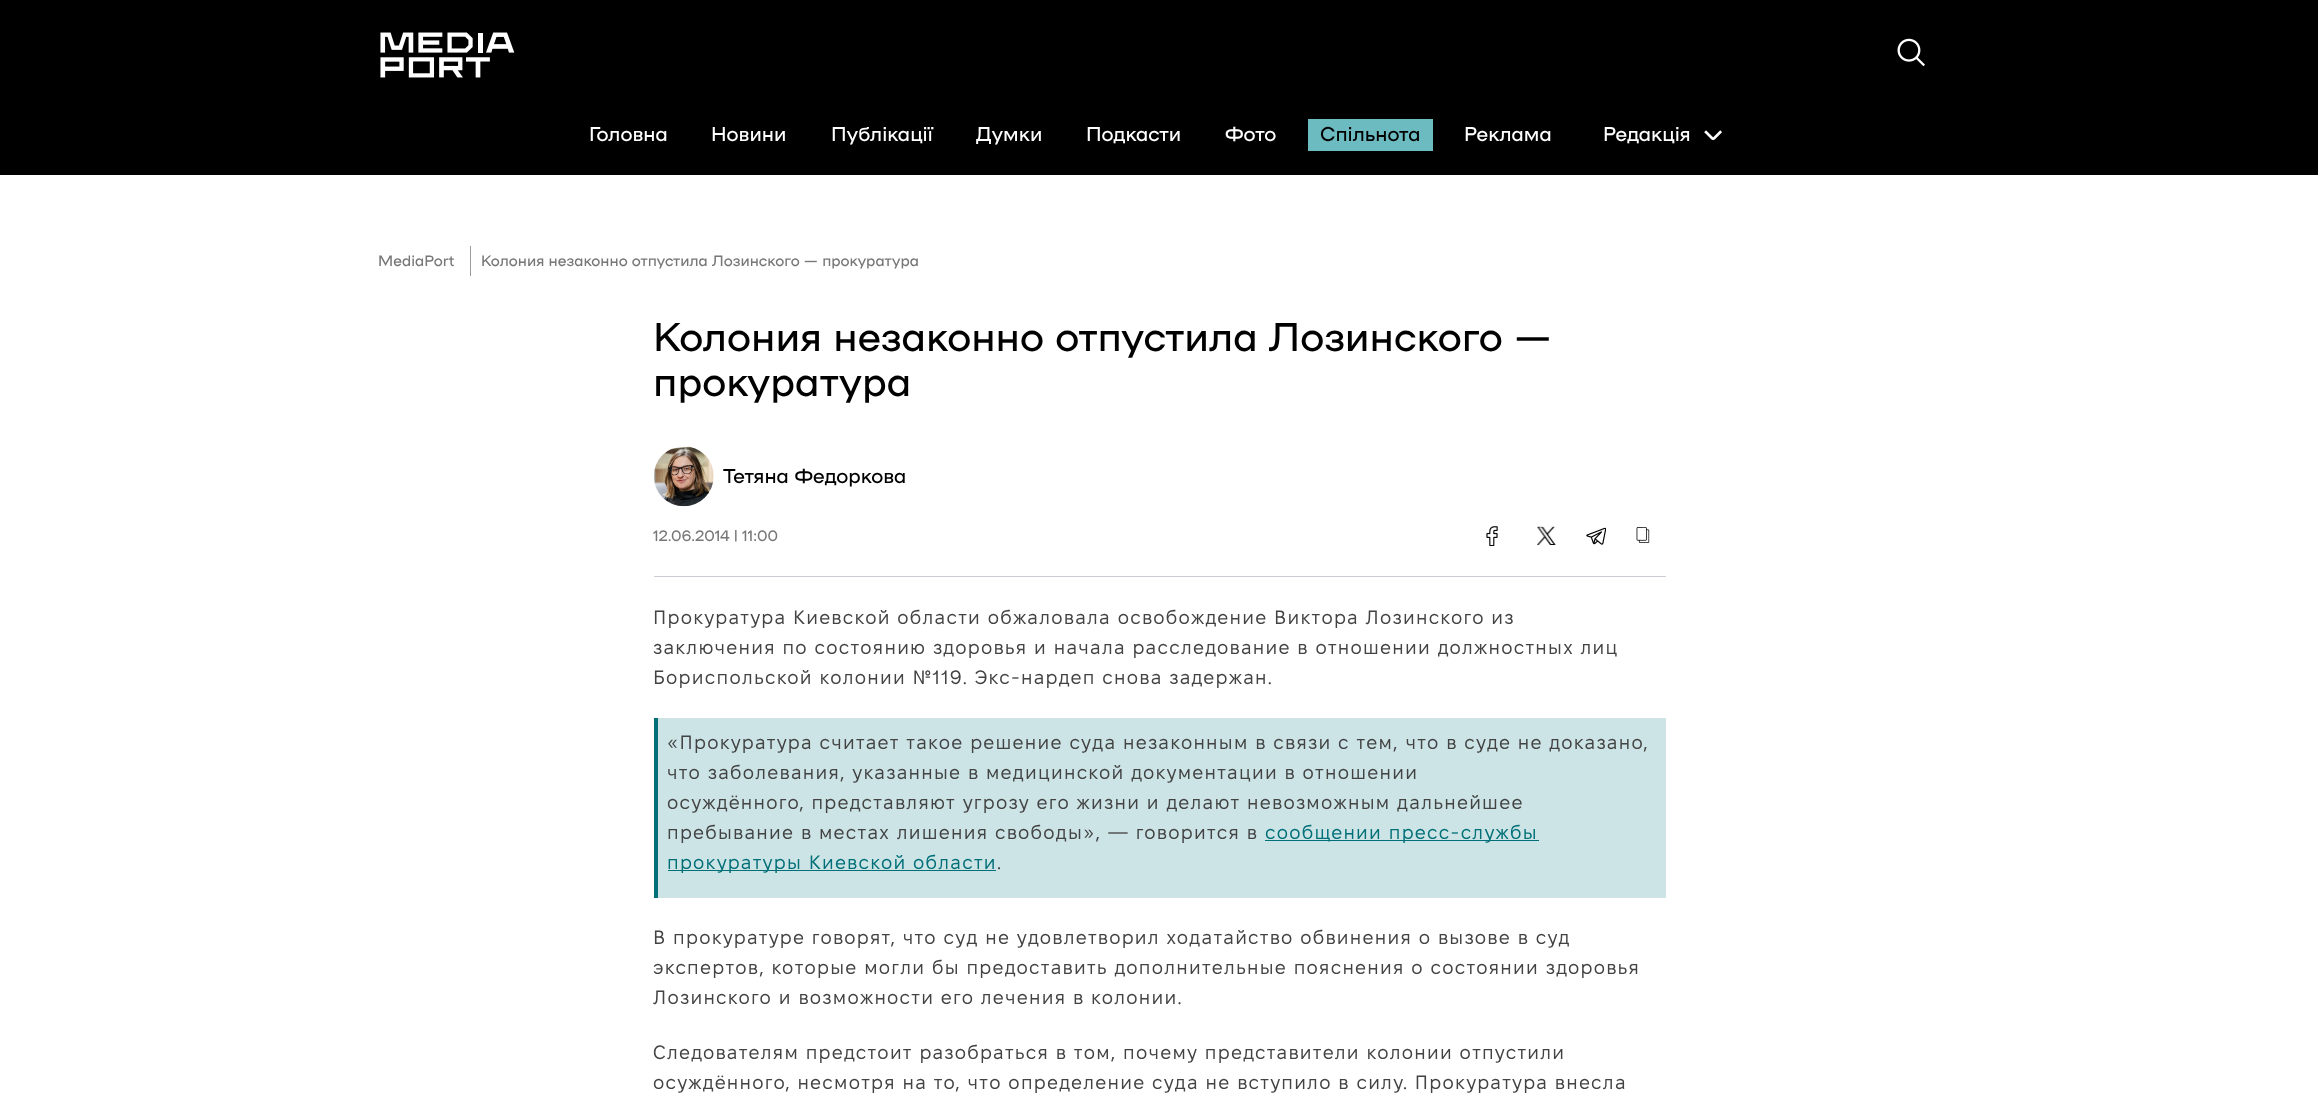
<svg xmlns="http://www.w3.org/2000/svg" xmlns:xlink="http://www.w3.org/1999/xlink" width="2318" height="1105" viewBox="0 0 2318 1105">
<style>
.cls-1{font:900 20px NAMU;fill:#ffffff}
.cls-2{font:900 20px NAMU;fill:#000000}
.cls-3{font:900 15px NAMU;fill:#777777}
.cls-4{font:900 40px NAMU;fill:#000000}
.cls-5{font:19.38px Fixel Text;letter-spacing:1.25px;fill:#434343}
.cls-6{font:19.38px Fixel Text;letter-spacing:1.25px;fill:#006f77}
</style>
<rect width="100%" height="100%" fill="#ffffff"/>
<rect fill="#000000" x="0" y="0" width="2318" height="175"/>
<image xlink:href="image0.png" x="380" y="32" width="135" height="46"/>
<image xlink:href="image1.png" x="1897" y="38" width="28" height="29"/>
<rect fill="#6bbbc1" x="1308" y="119" width="125" height="32"/>
<image xlink:href="image2.png" x="1704" y="130" width="18" height="10"/>
<rect fill="#9b9b9b" x="470" y="246" width="1" height="30"/>
<image xlink:href="image3.png" x="653" y="446" width="61" height="61"/>
<rect fill="#ceccd6" x="654" y="576" width="1012" height="1"/>
<image xlink:href="image4.png" x="1486" y="526" width="12" height="20"/>
<image xlink:href="image5.png" x="1537" y="526" width="19" height="19"/>
<image xlink:href="image6.png" x="1586" y="527" width="20" height="18"/>
<image xlink:href="image7.png" x="1636" y="527" width="14" height="16"/>
<rect fill="#cce4e6" x="658" y="718" width="1008" height="180"/>
<rect fill="#006f77" x="654" y="718" width="4" height="180"/>
<rect fill="#006f77" x="1265" y="840" width="274" height="1"/>
<rect fill="#006f77" x="668" y="870" width="328" height="1"/>
<text class="cls-1" x="589" y="141">Головна</text>
<text class="cls-1" x="711" y="141">Новини</text>
<text class="cls-1" x="831" y="141">Публікації</text>
<text class="cls-1" x="976" y="141">Думки</text>
<text class="cls-1" x="1086" y="141">Подкасти</text>
<text class="cls-1" x="1225" y="141">Фото</text>
<text class="cls-2" x="1320" y="141">Спільнота</text>
<text class="cls-1" x="1464" y="141">Реклама</text>
<text class="cls-1" x="1603" y="141">Редакція</text>
<text class="cls-3" x="378" y="266">MediaPort</text>
<text class="cls-3" x="481" y="266">Колония незаконно отпустила Лозинского — прокуратура</text>
<text class="cls-4"><tspan x="653" y="351">Колония незаконно отпустила Лозинского —</tspan><tspan x="653" y="396">прокуратура</tspan></text>
<text class="cls-2" x="723" y="483">Тетяна Федоркова</text>
<text class="cls-3" x="653" y="541">12.06.2014 | 11:00</text>
<text class="cls-5"><tspan x="653" y="624">Прокуратура Киевской области обжаловала освобождение Виктора Лозинского из</tspan><tspan x="653" y="654">заключения по состоянию здоровья и начала расследование в отношении должностных лиц</tspan><tspan x="653" y="684">Бориспольской колонии №119. Экс-нардеп снова задержан.</tspan></text>
<text class="cls-5"><tspan x="667" y="749">«Прокуратура считает такое решение суда незаконным в связи с тем, что в суде не доказано,</tspan><tspan x="667" y="779">что заболевания, указанные в медицинской документации в отношении</tspan><tspan x="667" y="809">осуждённого, представляют угрозу его жизни и делают невозможным дальнейшее</tspan><tspan x="667" y="839">пребывание в местах лишения свободы», — говорится в</tspan></text>
<text class="cls-6" x="1265" y="839">сообщении пресс-службы</text>
<text class="cls-6" x="667" y="869">прокуратуры Киевской области</text>
<text class="cls-5" x="997" y="869">.</text>
<text class="cls-5"><tspan x="653" y="944">В прокуратуре говорят, что суд не удовлетворил ходатайство обвинения о вызове в суд</tspan><tspan x="653" y="974">экспертов, которые могли бы предоставить дополнительные пояснения о состоянии здоровья</tspan><tspan x="653" y="1004">Лозинского и возможности его лечения в колонии.</tspan></text>
<text class="cls-5"><tspan x="653" y="1059">Следователям предстоит разобраться в том, почему представители колонии отпустили</tspan><tspan x="653" y="1089">осуждённого, несмотря на то, что определение суда не вступило в силу. Прокуратура внесла</tspan></text>
</svg>
